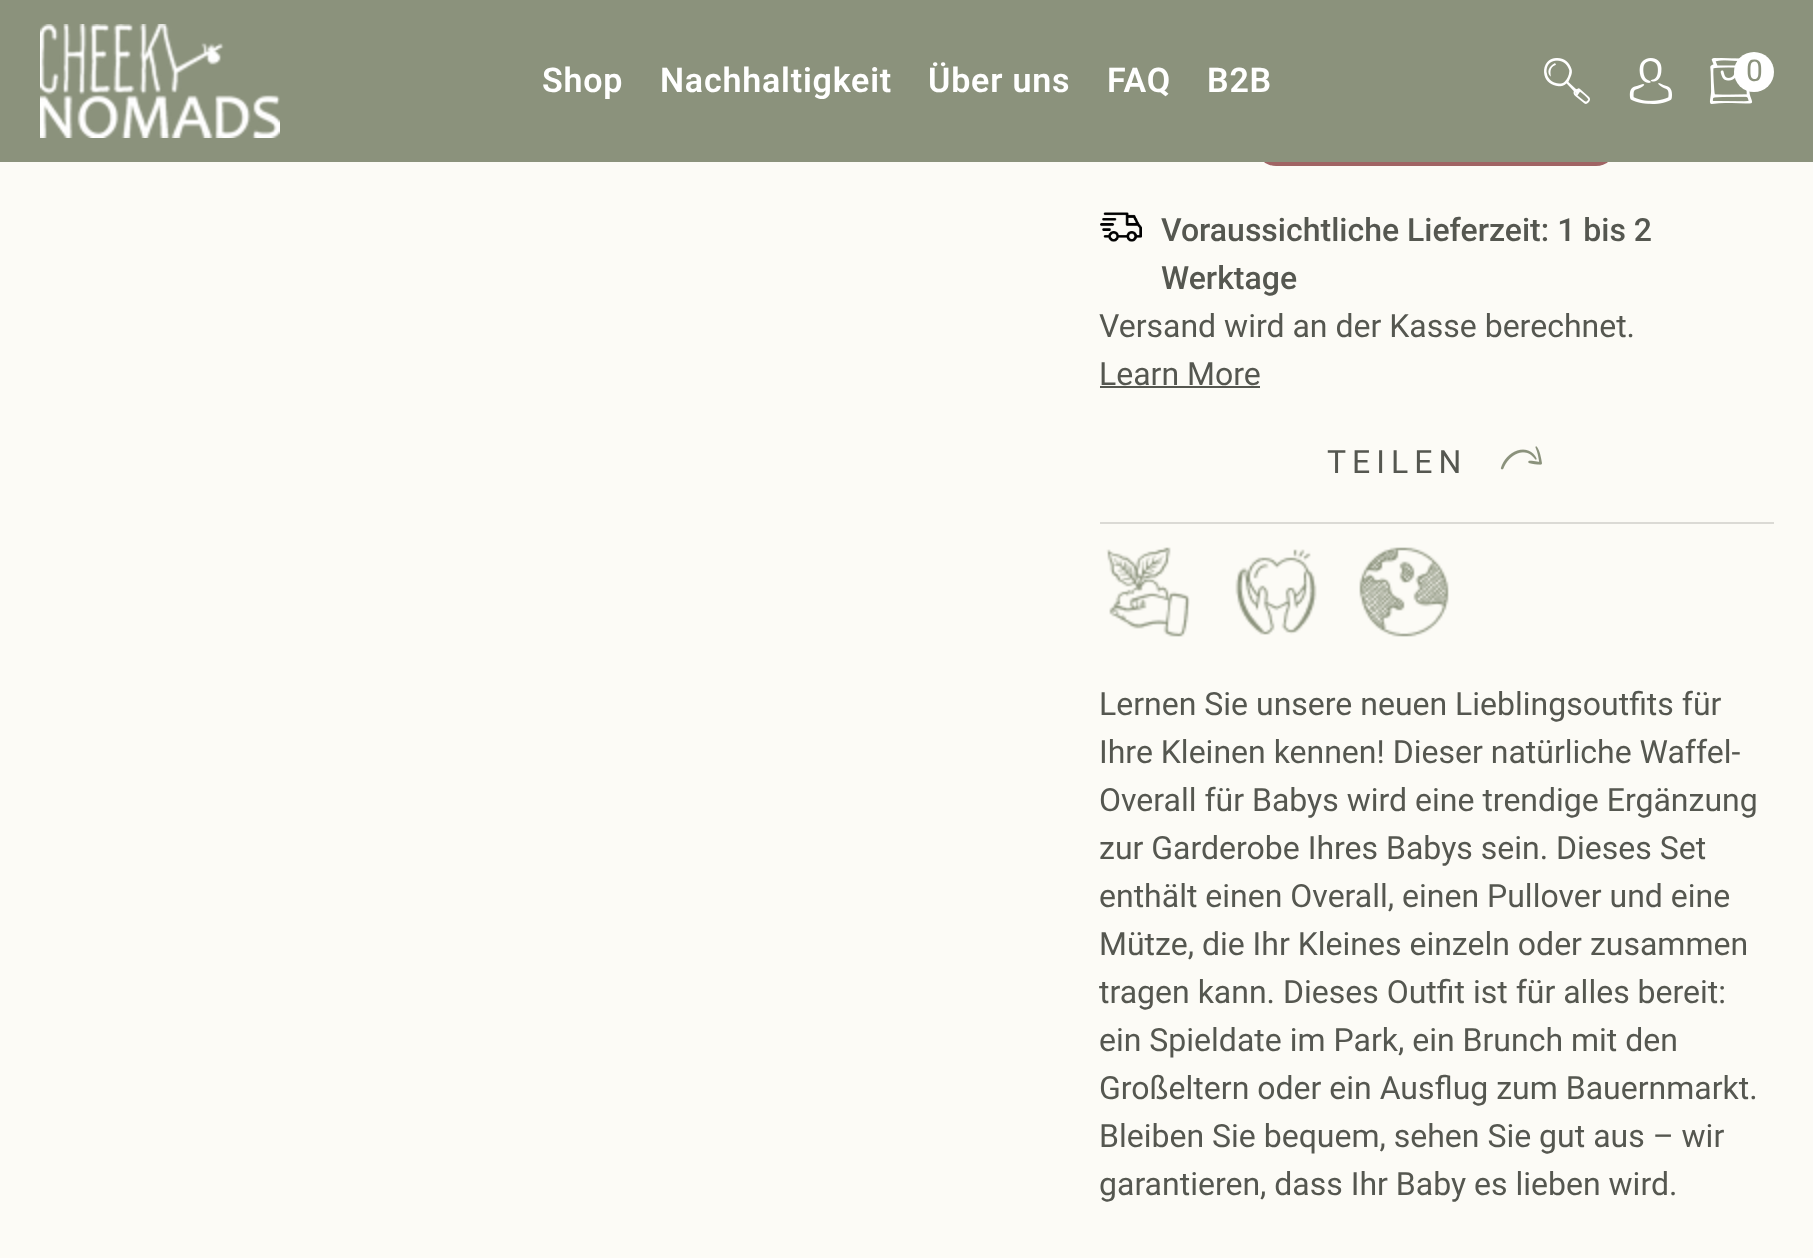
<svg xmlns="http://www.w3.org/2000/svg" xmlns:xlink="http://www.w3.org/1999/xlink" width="1813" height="1258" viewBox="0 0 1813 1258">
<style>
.cls-1{font:600 34px Roboto;letter-spacing:0.8px;fill:#ffffff}
.cls-2{font:30px Roboto;fill:#8b927c}
.cls-3{font:500 32px Roboto;fill:#555750}
.cls-4{font:32px Roboto;fill:#555750}
.cls-5{font:32px Roboto;letter-spacing:6px;fill:#555750}
</style>
<rect width="100%" height="100%" fill="#fcfbf6"/>
<rect fill="#a06464" x="1256" y="50" width="360" height="116" rx="20"/>
<rect fill="#8b927c" x="0" y="0" width="1813" height="162"/>
<image xlink:href="image0.png" x="40" y="24" width="240" height="114"/>
<image xlink:href="image1.png" x="1544" y="58" width="46" height="46"/>
<image xlink:href="image2.png" x="1629" y="58" width="43" height="46"/>
<image xlink:href="image3.png" x="1709" y="58" width="44" height="46"/>
<circle fill="#ffffff" cx="1754" cy="72" r="20"/>
<image xlink:href="image4.png" x="1100" y="212" width="42" height="30"/>
<rect fill="#555750" x="1100" y="386" width="160" height="2"/>
<image xlink:href="image5.png" x="1500" y="446" width="42" height="24"/>
<rect fill="#dbdad5" x="1100" y="522" width="674" height="2"/>
<image xlink:href="image6.png" x="1106" y="547" width="84" height="90"/>
<image xlink:href="image7.png" x="1235" y="549" width="82" height="86"/>
<image xlink:href="image8.png" x="1359" y="547" width="90" height="90"/>
<text class="cls-1" x="542" y="92">Shop</text>
<text class="cls-1" x="660" y="92">Nachhaltigkeit</text>
<text class="cls-1" x="928" y="92">Über uns</text>
<text class="cls-1" x="1107" y="92">FAQ</text>
<text class="cls-1" x="1207" y="92">B2B</text>
<text class="cls-2" x="1746" y="81">0</text>
<text class="cls-3"><tspan x="1161" y="241">Voraussichtliche Lieferzeit: 1 bis 2</tspan><tspan x="1161" y="289">Werktage</tspan></text>
<text class="cls-4"><tspan x="1099" y="337">Versand wird an der Kasse berechnet.</tspan><tspan x="1099" y="385">Learn More</tspan></text>
<text class="cls-5" x="1327" y="473">TEILEN</text>
<text class="cls-4"><tspan x="1099" y="715">Lernen Sie unsere neuen Lieblingsoutfits für</tspan><tspan x="1099" y="763">Ihre Kleinen kennen! Dieser natürliche Waffel-</tspan><tspan x="1099" y="811">Overall für Babys wird eine trendige Ergänzung</tspan><tspan x="1099" y="859">zur Garderobe Ihres Babys sein. Dieses Set</tspan><tspan x="1099" y="907">enthält einen Overall, einen Pullover und eine</tspan><tspan x="1099" y="955">Mütze, die Ihr Kleines einzeln oder zusammen</tspan><tspan x="1099" y="1003">tragen kann. Dieses Outfit ist für alles bereit:</tspan><tspan x="1099" y="1051">ein Spieldate im Park, ein Brunch mit den</tspan><tspan x="1099" y="1099">Großeltern oder ein Ausflug zum Bauernmarkt.</tspan><tspan x="1099" y="1147">Bleiben Sie bequem, sehen Sie gut aus – wir</tspan><tspan x="1099" y="1195">garantieren, dass Ihr Baby es lieben wird.</tspan></text>
</svg>
